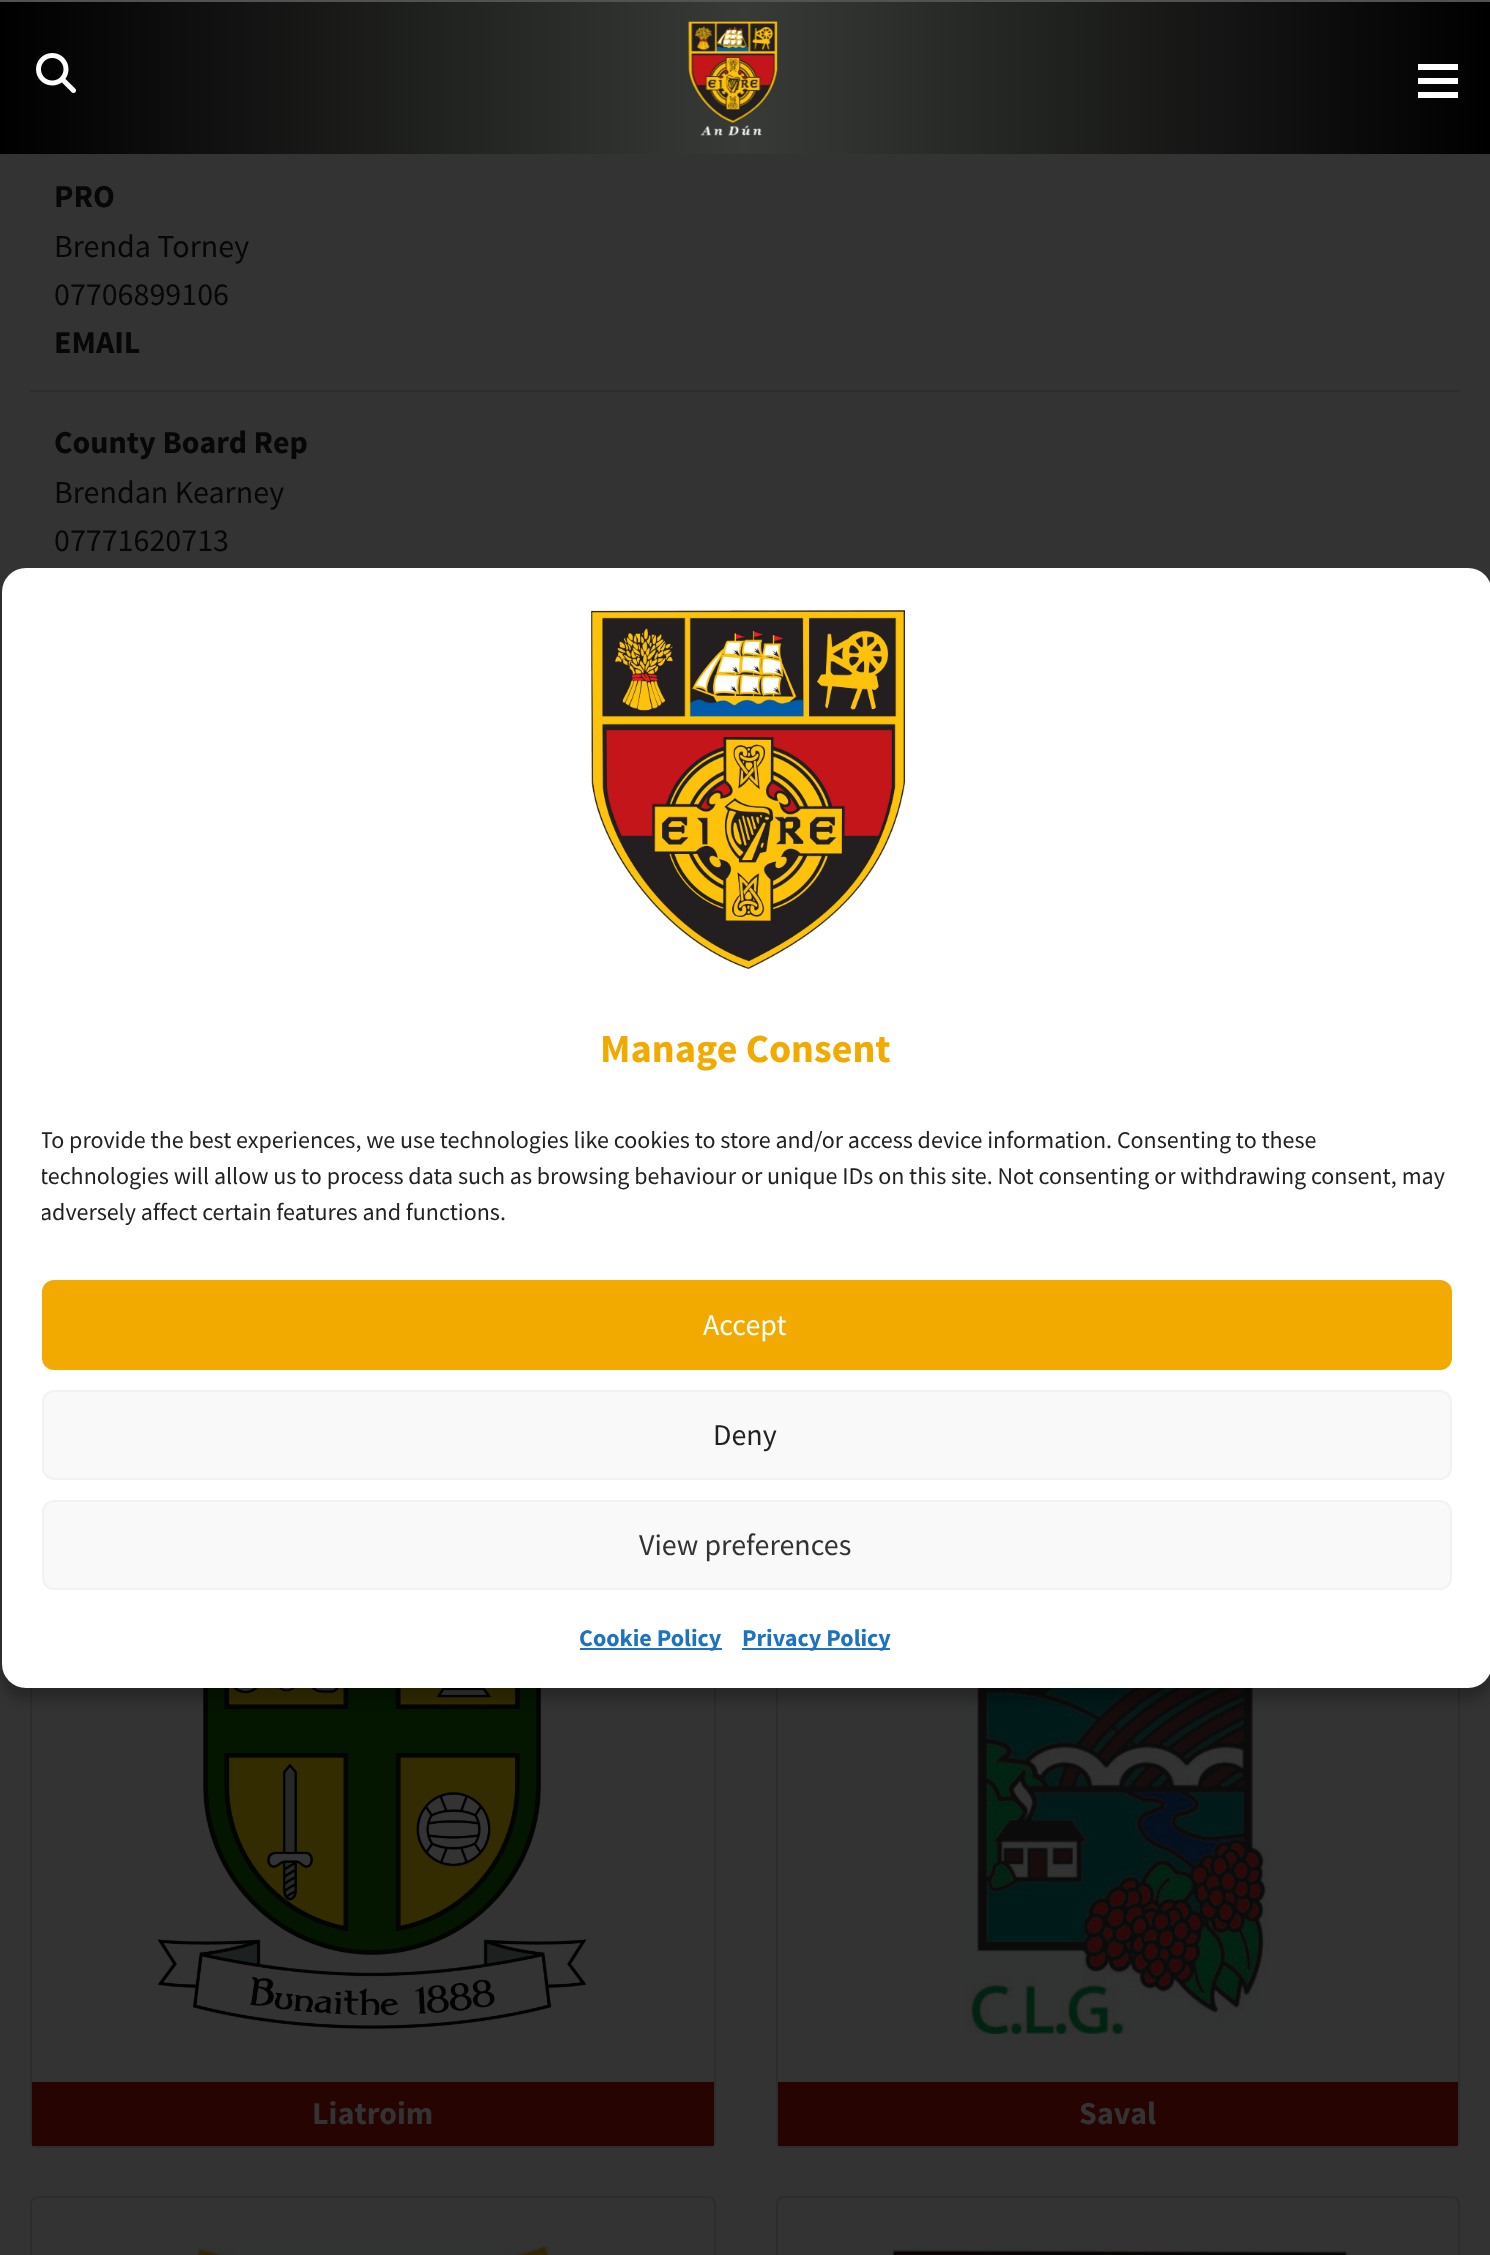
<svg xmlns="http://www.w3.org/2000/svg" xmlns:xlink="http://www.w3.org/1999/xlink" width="1490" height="2255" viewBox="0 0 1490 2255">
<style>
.cls-1{font:bold 32px Source Sans Pro;fill:#070708}
.cls-2{font:32px Source Sans Pro;fill:#070708}
.cls-3{font:bold 40px Source Sans Pro;fill:#f2a900}
.cls-4{font:24px Source Sans Pro;fill:#222222}
.cls-5{font:30px Source Sans Pro;fill:#ffffff}
.cls-6{font:30px Source Sans Pro;fill:#222222}
.cls-7{font:30px Source Sans Pro;fill:#333333}
.cls-8{font:bold 24px Source Sans Pro;fill:#1e73be}
.cls-9{font:bold 32px Source Sans Pro;fill:#333333}
</style>
<defs>
<linearGradient id="g1" gradientUnits="userSpaceOnUse" x1="0" y1="78" x2="1490" y2="78"><stop offset="0" stop-color="#000000"/><stop offset="0.5" stop-color="#373a36"/><stop offset="1" stop-color="#000000"/></linearGradient>
<clipPath id="clip1"><rect x="42" y="1122" width="1410" height="118"/></clipPath>
</defs>
<rect width="100%" height="100%" fill="#333333"/>
<rect fill="url(#g1)" x="0" y="2" width="1490" height="152"/>
<rect fill="#525252" x="0" y="0" width="1490" height="2"/>
<image xlink:href="image0.png" x="36" y="53" width="40" height="40"/>
<image xlink:href="image1.png" x="688" y="21" width="90" height="115"/>
<rect fill="#ffffff" x="1418" y="78" width="40" height="6"/>
<rect fill="#ffffff" x="1418" y="64" width="40" height="6"/>
<rect fill="#ffffff" x="1418" y="92" width="40" height="6"/>
<rect fill="#2c2d2e" x="30" y="390" width="1430" height="2"/>
<rect fill="none" stroke="#2d2d2d" stroke-width="2" x="31" y="1399" width="684" height="748" rx="7"/>
<image xlink:href="image3.png" x="126" y="1688" width="492" height="341"/>
<rect fill="none" stroke="#2d2d2d" stroke-width="2" x="777" y="1399" width="682" height="748" rx="7"/>
<image xlink:href="image4.png" x="966" y="1688" width="305" height="346"/>
<rect fill="#000000" fill-opacity="0.23" filter="blur(6px)" x="2" y="580" width="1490" height="1120" rx="24"/>
<rect fill="#ffffff" x="2" y="568" width="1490" height="1120" rx="24"/>
<image xlink:href="image2.png" x="591" y="610" width="314" height="359"/>
<rect fill="#f2a900" x="42" y="1280" width="1410" height="90" rx="12"/>
<rect fill="#f9f9f9" stroke="#f2f2f2" stroke-width="2" x="43" y="1391" width="1408" height="88" rx="11"/>
<rect fill="#f9f9f9" stroke="#f2f2f2" stroke-width="2" x="43" y="1501" width="1408" height="88" rx="11"/>
<rect fill="#1e73be" x="580" y="1648" width="142" height="2"/>
<rect fill="#1e73be" x="742" y="1648" width="148" height="2"/>
<rect fill="#260402" x="32" y="2082" width="682" height="64"/>
<rect fill="#260402" x="778" y="2082" width="680" height="64"/>
<rect fill="none" stroke="#2d2d2d" stroke-width="2" x="31" y="2197" width="684" height="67" rx="7"/>
<image xlink:href="image5.png" x="197" y="2246" width="353" height="9"/>
<rect fill="none" stroke="#2d2d2d" stroke-width="2" x="777" y="2197" width="682" height="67" rx="7"/>
<image xlink:href="image6.png" x="890" y="2246" width="462" height="9"/>
<text class="cls-1" x="54" y="207">PRO</text>
<text class="cls-2"><tspan x="54" y="257">Brenda Torney</tspan><tspan x="54" y="305">07706899106</tspan></text>
<text class="cls-1" x="54" y="353">EMAIL</text>
<text class="cls-1" x="54" y="453">County Board Rep</text>
<text class="cls-2"><tspan x="54" y="503">Brendan Kearney</tspan><tspan x="54" y="551">07771620713</tspan></text>
<text class="cls-3" x="600" y="1062">Manage Consent</text>
<g clip-path="url(#clip1)">
<text class="cls-4"><tspan x="40" y="1148">To provide the best experiences, we use technologies like cookies to store and/or access device information. Consenting to these</tspan><tspan x="40" y="1184">technologies will allow us to process data such as browsing behaviour or unique IDs on this site. Not consenting or withdrawing consent, may</tspan><tspan x="40" y="1220">adversely affect certain features and functions.</tspan></text>
</g>
<text class="cls-5" x="703" y="1335">Accept</text>
<text class="cls-6" x="713" y="1445">Deny</text>
<text class="cls-7" x="639" y="1555">View preferences</text>
<text class="cls-8" x="579" y="1646">Cookie Policy</text>
<text class="cls-8" x="742" y="1646">Privacy Policy</text>
<text class="cls-9" x="312" y="2124">Liatroim</text>
<text class="cls-9" x="1079" y="2124">Saval</text>
</svg>
